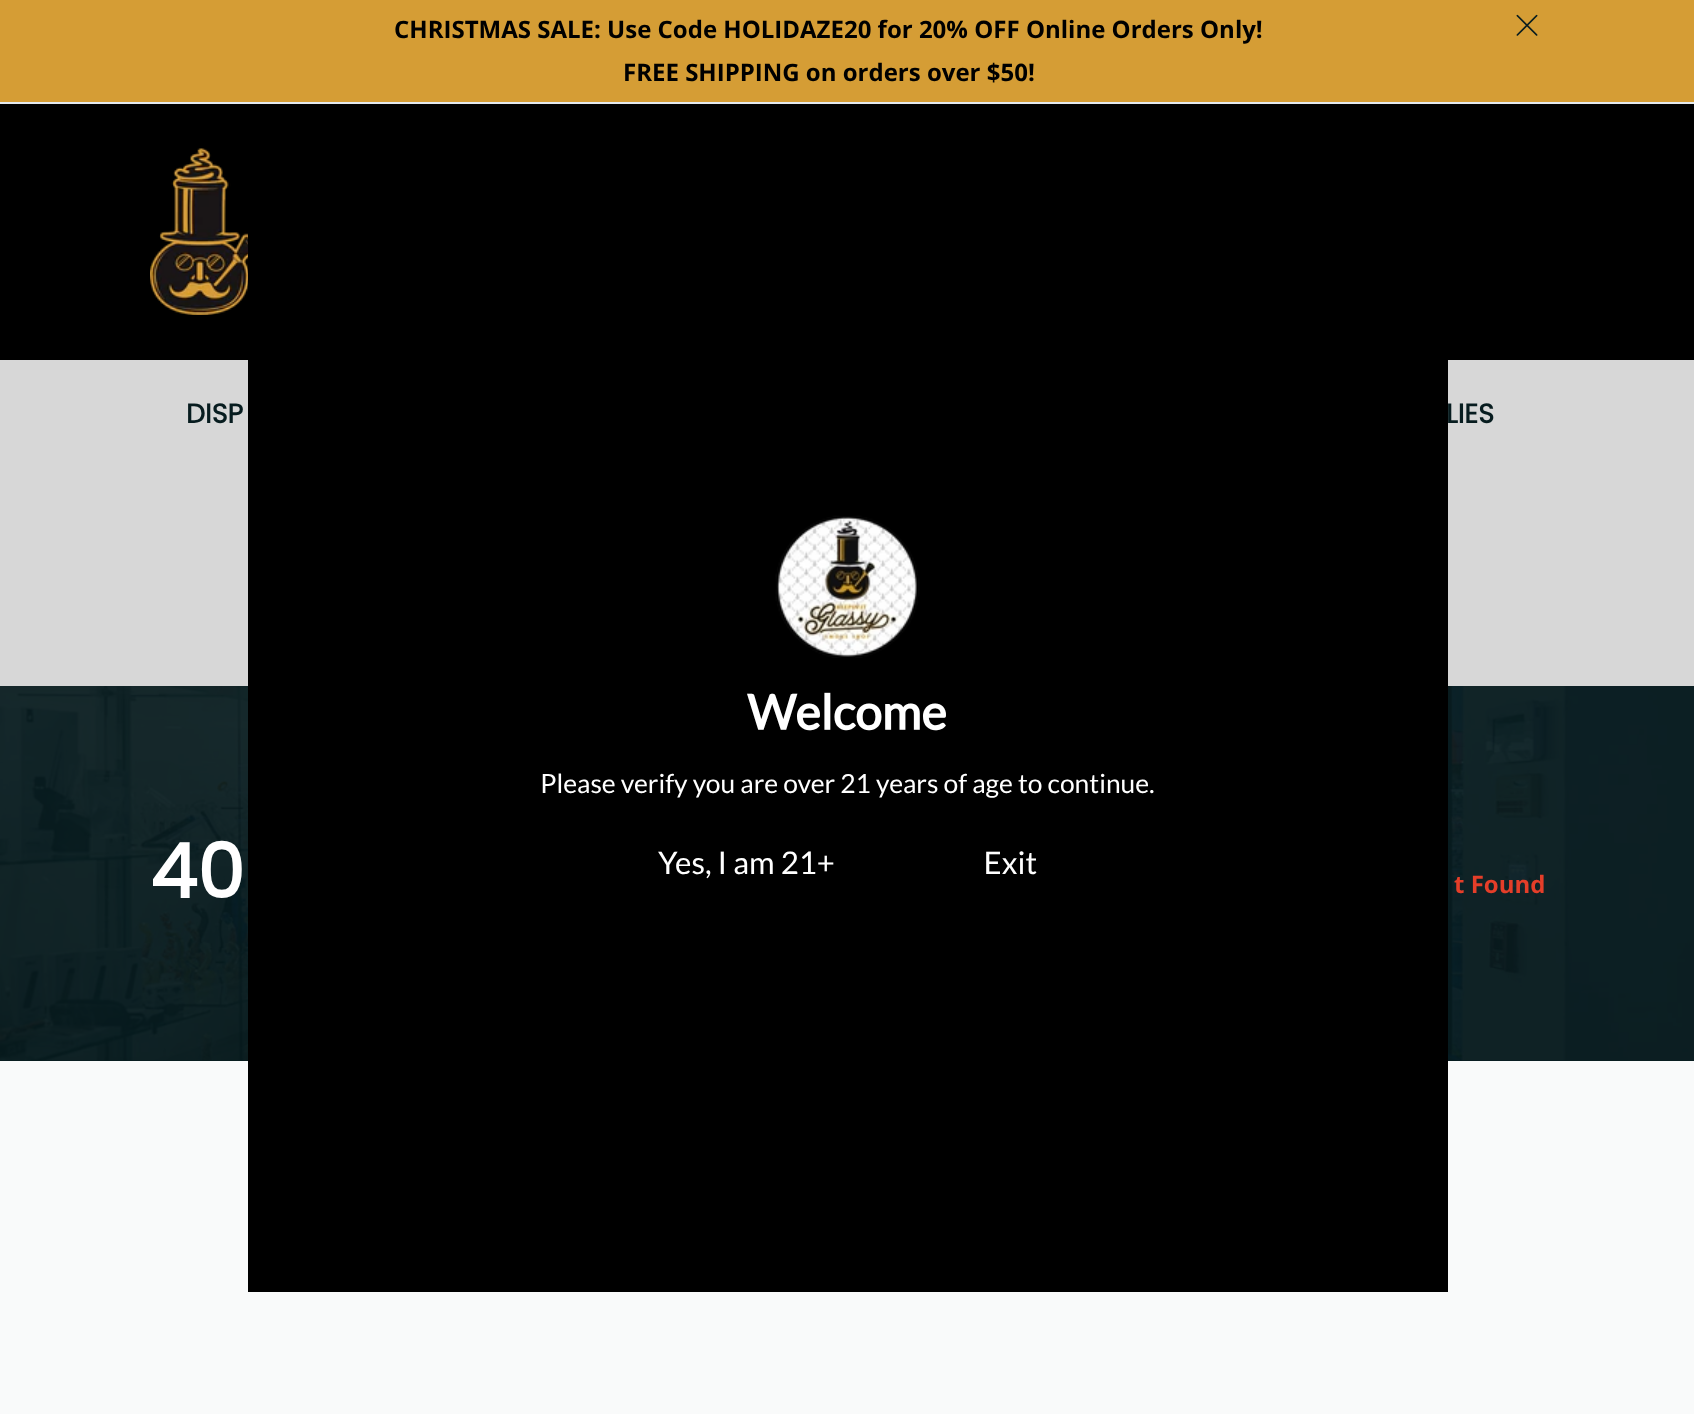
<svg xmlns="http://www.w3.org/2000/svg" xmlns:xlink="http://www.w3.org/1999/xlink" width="1694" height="1414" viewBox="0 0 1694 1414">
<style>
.cls-1{font:bold 24px Open Sans;fill:#000000}
.cls-2{font:bold 27px Poppins;fill:#071c1f}
.cls-3{font:bold 75px Poppins;fill:#ffffff}
.cls-4{font:bold 24px Open Sans;fill:#e53e29}
</style>
<rect width="100%" height="100%" fill="#f9fafa"/>
<rect fill="#d59d35" x="0" y="0" width="1694" height="102"/>
<image xlink:href="image0.png" x="1516" y="14" width="22" height="22"/>
<rect fill="#e5eaee" x="0" y="102" width="1694" height="2"/>
<rect fill="#000000" x="0" y="104" width="1694" height="256"/>
<image xlink:href="image1.png" x="150" y="148" width="98" height="167"/>
<rect fill="#d7d7d7" x="0" y="360" width="1694" height="326"/>
<rect fill="#071c1f" x="0" y="1060" width="1694" height="1"/>
<image xlink:href="image2.png" x="0" y="686" width="1694" height="375"/>
<rect fill="#071c1f" fill-opacity="0.9" x="0" y="686" width="1694" height="375"/>
<image xlink:href="image3.png" x="248" y="183" width="1200" height="1109"/>
<text class="cls-1" x="394" y="38">CHRISTMAS SALE: Use Code HOLIDAZE20 for 20% OFF Online Orders Only!</text>
<text class="cls-1" x="623" y="81">FREE SHIPPING on orders over $50!</text>
<text class="cls-2" x="186" y="423">DISP</text>
<text class="cls-2" x="1446" y="423">LIES</text>
<text class="cls-3" x="150" y="898">40</text>
<text class="cls-4" x="1454" y="893">t Found</text>
</svg>
